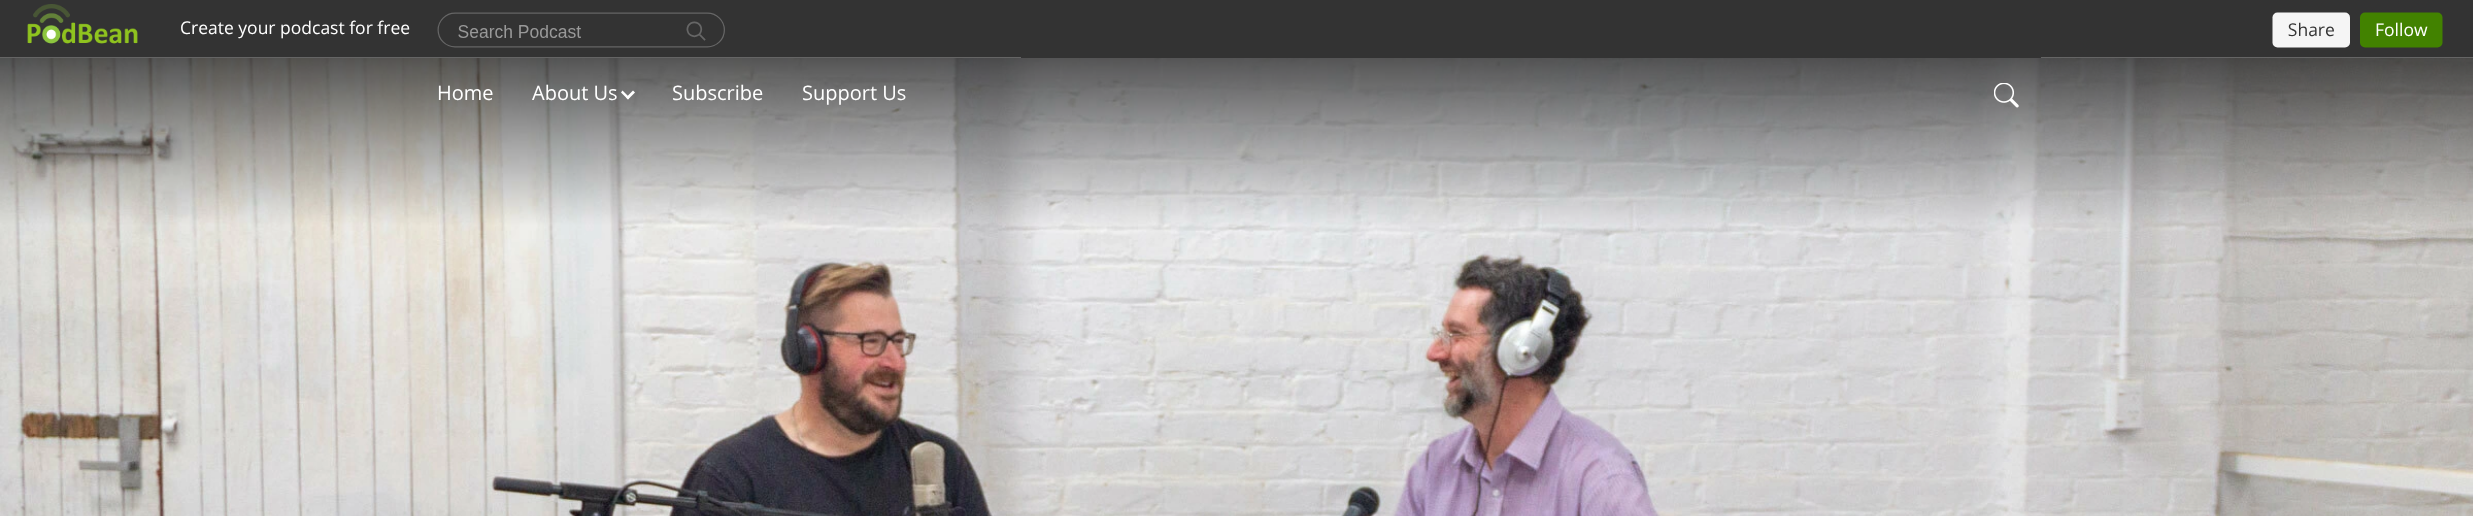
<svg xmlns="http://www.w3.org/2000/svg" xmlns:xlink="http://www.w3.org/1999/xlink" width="2473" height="516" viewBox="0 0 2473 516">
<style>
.cls-1{font:20px Open Sans;fill:#ffffff}
</style>
<rect width="100%" height="100%" fill="#ffffff"/>
<rect fill="#333333" x="0" y="0" width="2473" height="4"/>
<image xlink:href="image0.png" x="0" y="4" width="2473" height="54"/>
<image xlink:href="image1.png" x="0" y="58" width="2473" height="458"/>
<path fill="#ffffff" d="M633 90.5L635 92.5L628 99.5L626 97.5Z"/>
<path fill="#ffffff" d="M622.5 90.5L629.5 97.5L628 99.5L621 92.5Z"/>
<image xlink:href="image2.png" x="1994" y="83" width="25" height="25"/>
<text class="cls-1" x="437" y="100">Home</text>
<text class="cls-1" x="532" y="100">About Us</text>
<text class="cls-1" x="672" y="100">Subscribe</text>
<text class="cls-1" x="802" y="100">Support Us</text>
</svg>
